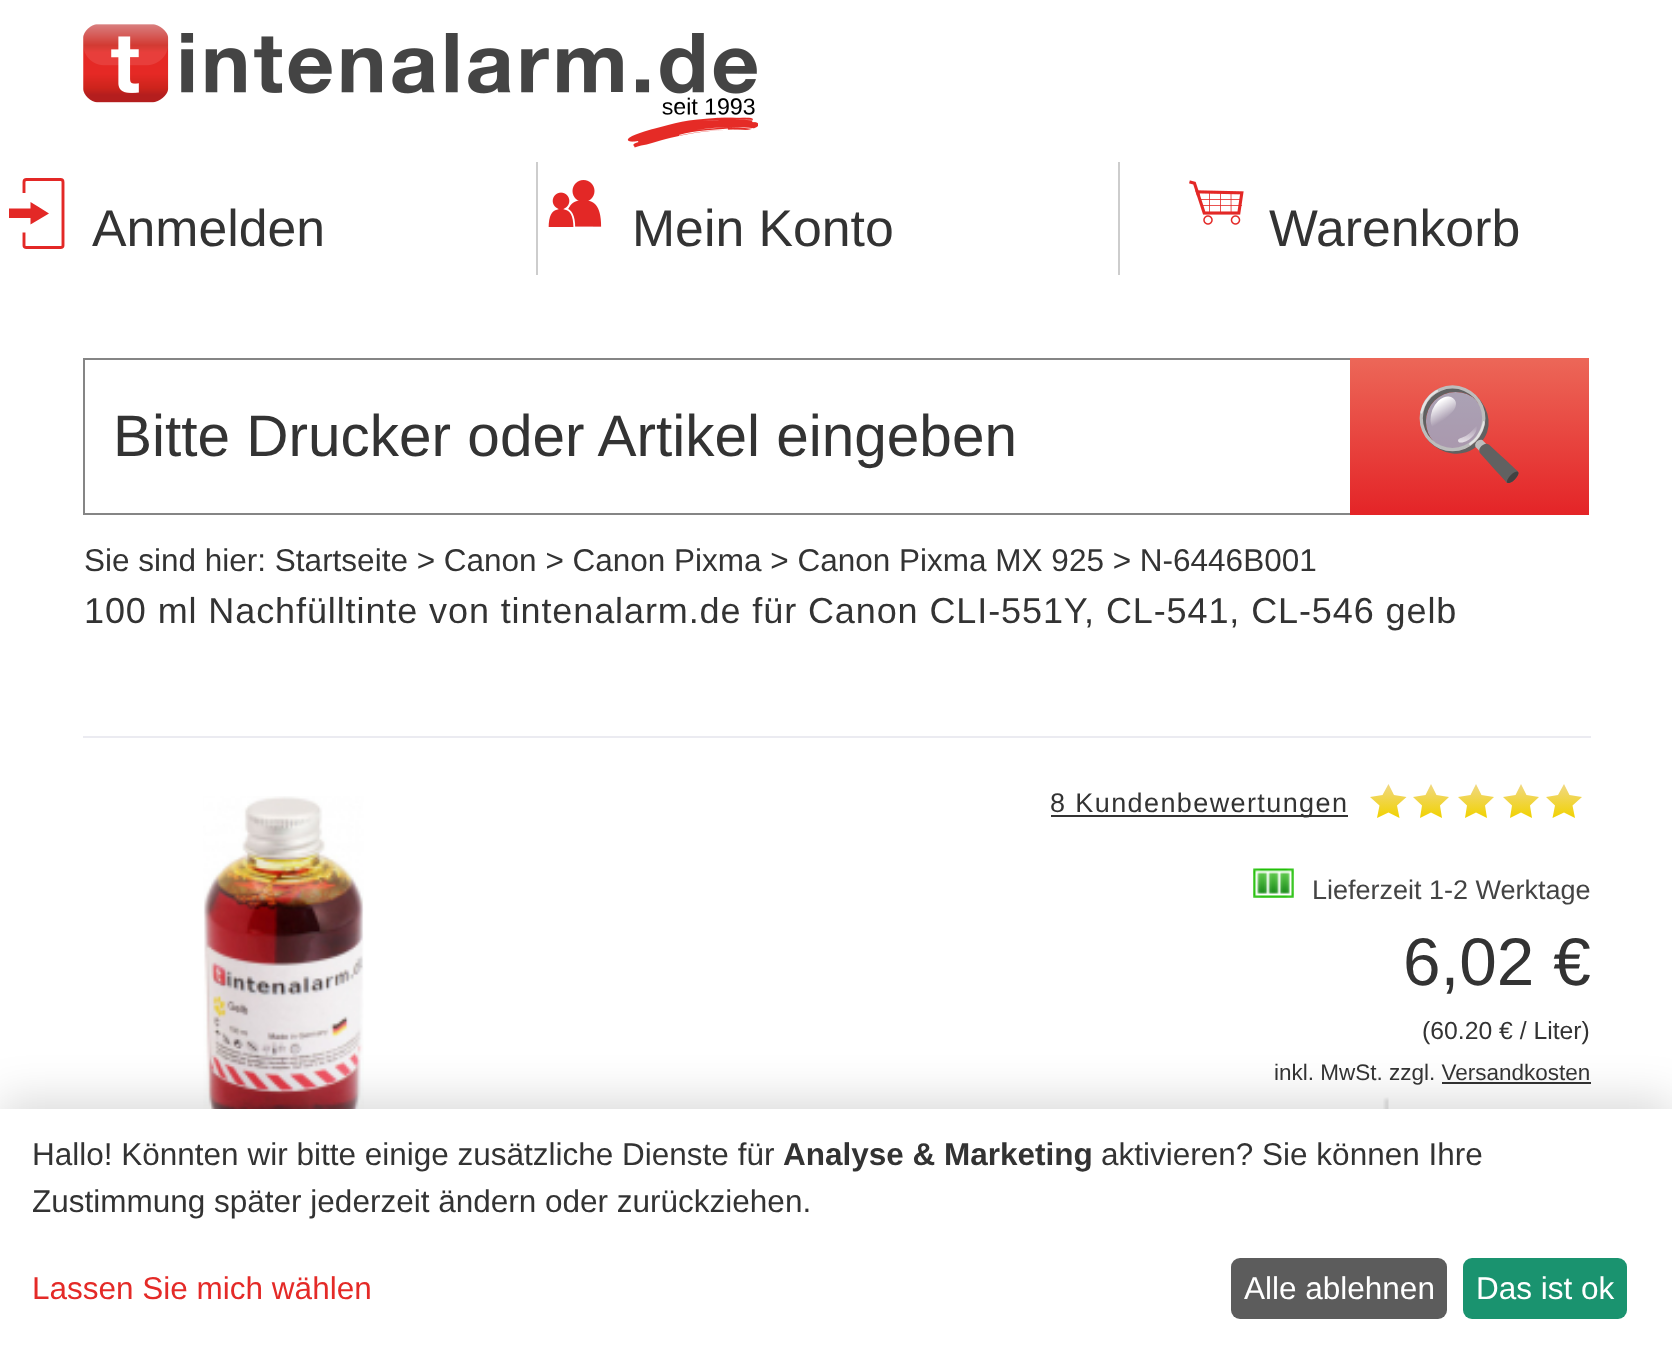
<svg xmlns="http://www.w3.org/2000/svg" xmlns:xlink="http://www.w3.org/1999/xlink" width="1672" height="1350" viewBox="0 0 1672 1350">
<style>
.cls-1{font:51.75px Liberation Sans;fill:#333333}
.cls-2{font:58.5px Liberation Sans;fill:#333333}
.cls-3{font:bold 90px Noto Color Emoji;fill:#ffffff}
.cls-4{font:31.5px Liberation Sans;fill:#333333}
.cls-5{font:36px Liberation Sans;letter-spacing:0.9px;fill:#333333}
.cls-6{font:27px Liberation Sans;letter-spacing:1.4px;fill:#333333}
.cls-7{font:27px Liberation Sans;fill:#444444}
.cls-8{font:67.5px Liberation Sans;fill:#333333}
.cls-9{font:24.75px Liberation Sans;fill:#333333}
.cls-10{font:22.5px Liberation Sans;fill:#333333}
.cls-11{font:bold 31.5px Liberation Sans;fill:#333333}
.cls-12{font:31.5px Liberation Sans;fill:#e42a27}
.cls-13{font:31.5px Liberation Sans;fill:#ffffff}
</style>
<defs>
<linearGradient id="g1" gradientUnits="userSpaceOnUse" x1="1469" y1="358" x2="1469" y2="515"><stop offset="0" stop-color="#ec6758"/><stop offset="1" stop-color="#e42427"/></linearGradient>
<linearGradient id="g2" gradientUnits="userSpaceOnUse" x1="1388" y1="784" x2="1388" y2="818"><stop offset="0" stop-color="#f0d885"/><stop offset="1" stop-color="#f1d200"/></linearGradient>
<linearGradient id="g3" gradientUnits="userSpaceOnUse" x1="1431" y1="784" x2="1431" y2="818"><stop offset="0" stop-color="#f0d885"/><stop offset="1" stop-color="#f1d200"/></linearGradient>
<linearGradient id="g4" gradientUnits="userSpaceOnUse" x1="1476" y1="784" x2="1476" y2="818"><stop offset="0" stop-color="#f0d885"/><stop offset="1" stop-color="#f1d200"/></linearGradient>
<linearGradient id="g5" gradientUnits="userSpaceOnUse" x1="1521" y1="784" x2="1521" y2="818"><stop offset="0" stop-color="#f0d885"/><stop offset="1" stop-color="#f1d200"/></linearGradient>
<linearGradient id="g6" gradientUnits="userSpaceOnUse" x1="1564" y1="784" x2="1564" y2="818"><stop offset="0" stop-color="#f0d885"/><stop offset="1" stop-color="#f1d200"/></linearGradient>
</defs>
<rect width="100%" height="100%" fill="#ffffff"/>
<image xlink:href="image0.png" x="83" y="24" width="675" height="124"/>
<path fill="none" stroke="#e32826" stroke-width="2.9" d="M24 193V182C24 180.5 25 179.5 26.5 179.5H60.5C62 179.5 63 180.5 63 182V245.5C63 246.5 62 247.5 60.5 247.5H26.5C25 247.5 24 246.5 24 245.5V232.5"/>
<path fill="#e32826" d="M39.5 207.5L30.5 202V208.5H9V218H30.5V224.5L49 213.5Z"/>
<rect fill="#cdcdcd" x="1118" y="162" width="2" height="113"/>
<rect fill="#cdcdcd" x="536" y="162" width="2" height="113"/>
<image xlink:href="image1.png" x="548" y="180" width="54" height="47"/>
<image xlink:href="image2.png" x="1189" y="180" width="55" height="45"/>
<rect fill="#858585" x="83" y="358" width="1267" height="2"/>
<rect fill="#858585" x="83" y="513" width="1267" height="2"/>
<rect fill="#858585" x="83" y="358" width="2" height="157"/>
<rect fill="url(#g1)" x="1350" y="358" width="239" height="157"/>
<rect fill="#ebebf1" x="83" y="736" width="1508" height="2"/>
<image xlink:href="image3.png" x="203" y="796" width="161" height="313"/>
<rect fill="#333333" x="1051" y="815" width="297" height="2"/>
<path fill="url(#g2)" d="M1388.5 784L1394 795L1406.5 797L1397 805.5L1399.5 818L1388.5 812.5L1377 818L1379.5 805.5L1370 797L1382.5 795Z"/>
<path fill="url(#g3)" d="M1431 784L1436.5 795L1449 797L1440 805.5L1442 818L1431 812.5L1420 818L1422 805.5L1413 797L1425.5 795Z"/>
<path fill="url(#g4)" d="M1476 784L1481.5 795L1494 797L1485 805.5L1487 818L1476 812.5L1465 818L1467 805.5L1458 797L1470.5 795Z"/>
<path fill="url(#g5)" d="M1521 784L1526.5 795L1539 797L1530 805.5L1532 818L1521 812.5L1510 818L1512 805.5L1503 797L1515.5 795Z"/>
<path fill="url(#g6)" d="M1564 784L1569.5 795L1582 797L1572.5 805.5L1575 818L1564 812.5L1552.5 818L1555 805.5L1546 797L1558 795Z"/>
<image xlink:href="image4.png" x="1253" y="868" width="41" height="30"/>
<rect fill="#333333" x="1442" y="1082" width="149" height="2"/>
<image xlink:href="image5.png" x="1383" y="1097" width="289" height="12"/>
<rect fill="#000000" fill-opacity="0.15" filter="blur(22.5px)" x="0" y="1100" width="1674" height="241"/>
<rect fill="#ffffff" x="0" y="1109" width="1672" height="241"/>
<rect fill="#5c5c5c" x="1231" y="1258" width="216" height="61" rx="9"/>
<rect fill="#1a936f" x="1463" y="1258" width="164" height="61" rx="9"/>
<text class="cls-1" x="92" y="246">Anmelden</text>
<text class="cls-1" x="632" y="246">Mein Konto</text>
<text class="cls-1" x="1269" y="246">Warenkorb</text>
<text class="cls-2" x="113" y="456">Bitte Drucker oder Artikel eingeben</text>
<text class="cls-3" x="1413" y="465">🔍</text>
<text class="cls-4" x="84" y="571">Sie sind hier: Startseite &gt; Canon &gt; Canon Pixma &gt; Canon Pixma MX 925 &gt; N-6446B001</text>
<text class="cls-5" x="84" y="623">100 ml Nachfülltinte von tintenalarm.de für Canon CLI-551Y, CL-541, CL-546 gelb</text>
<text class="cls-6" x="1050" y="812">8 Kundenbewertungen</text>
<text class="cls-7" x="1312" y="899">Lieferzeit 1-2 Werktage</text>
<text class="cls-8" x="1403" y="985">6,02 €</text>
<text class="cls-9" x="1422" y="1039">(60.20 € / Liter)</text>
<text class="cls-10" x="1274" y="1080">inkl. MwSt. zzgl. Versandkosten</text>
<text class="cls-4" x="32" y="1165">Hallo! Könnten wir bitte einige zusätzliche Dienste für</text>
<text class="cls-11" x="783" y="1165">Analyse &amp; Marketing</text>
<text class="cls-4" x="1101" y="1165">aktivieren? Sie können Ihre</text>
<text class="cls-4" x="32" y="1212">Zustimmung später jederzeit ändern oder zurückziehen.</text>
<text class="cls-12" x="32" y="1299">Lassen Sie mich wählen</text>
<text class="cls-13" x="1244" y="1299">Alle ablehnen</text>
<text class="cls-13" x="1476" y="1299">Das ist ok</text>
</svg>
